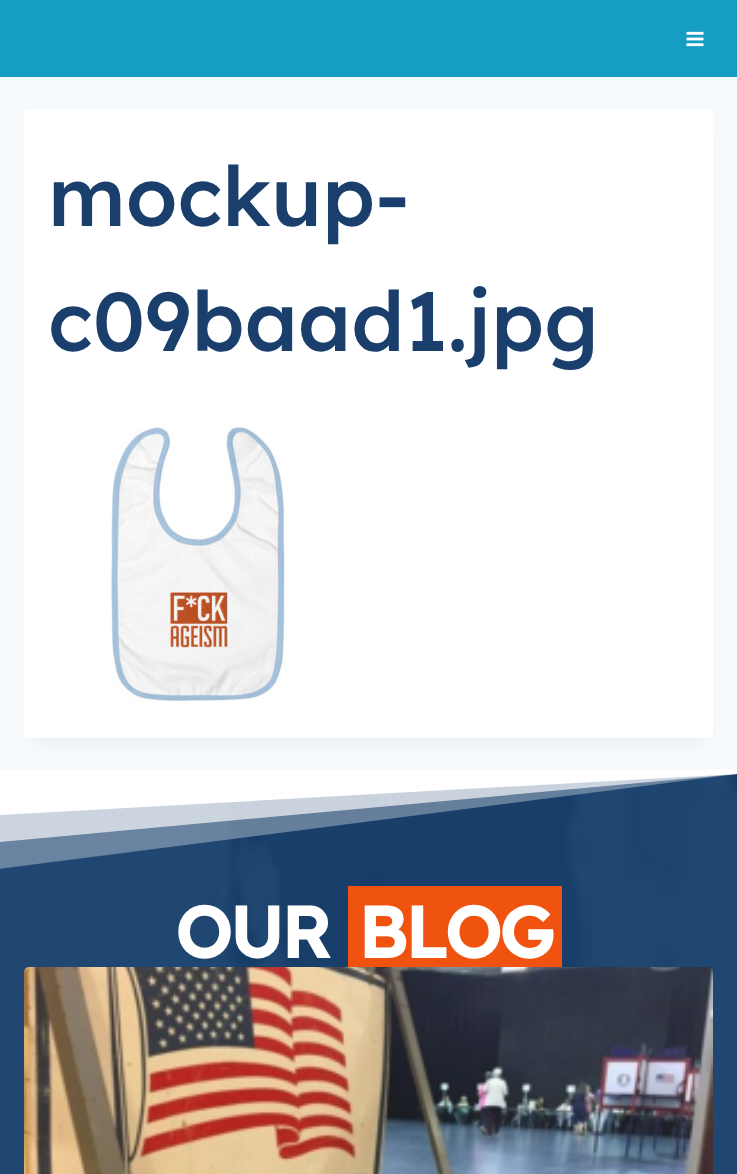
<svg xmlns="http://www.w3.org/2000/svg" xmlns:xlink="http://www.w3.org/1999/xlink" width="737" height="1174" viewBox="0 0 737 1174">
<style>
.cls-1{font:500 83px Lexend;fill:#1b3f6d}
.cls-2{font:bold 72px Lexend;letter-spacing:-2.5px;fill:#ffffff}
</style>
<rect width="100%" height="100%" fill="#f7fafc"/>
<rect fill="#159ec2" x="0" y="0" width="737" height="77"/>
<image xlink:href="image0.png" x="686" y="31" width="18" height="16"/>
<rect fill="#000000" fill-opacity="0.05" filter="blur(7.5px)" x="34" y="134" width="669" height="609"/>
<rect fill="#ffffff" x="24" y="109" width="689" height="629" rx="4"/>
<image xlink:href="image1.png" x="110" y="422" width="178" height="280"/>
<image xlink:href="image2.png" x="0" y="774" width="737" height="400"/>
<path fill="#ffffff" fill-opacity="0.33" d="M737 774L-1 869V769H737Z"/>
<path fill="#ffffff" fill-opacity="0.66" d="M737 774L-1 842V769H737Z"/>
<path fill="#ffffff" d="M737 774L-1 815V769H737Z"/>
<rect fill="#f05310" x="348" y="886" width="214" height="81"/>
<image xlink:href="image3.png" x="24" y="967" width="689" height="207"/>
<text class="cls-1"><tspan x="48" y="226">mockup-</tspan><tspan x="48" y="351">c09baad1.jpg</tspan></text>
<text class="cls-2" x="175" y="958">OUR</text>
<text class="cls-2" x="358" y="958">BLOG</text>
</svg>
